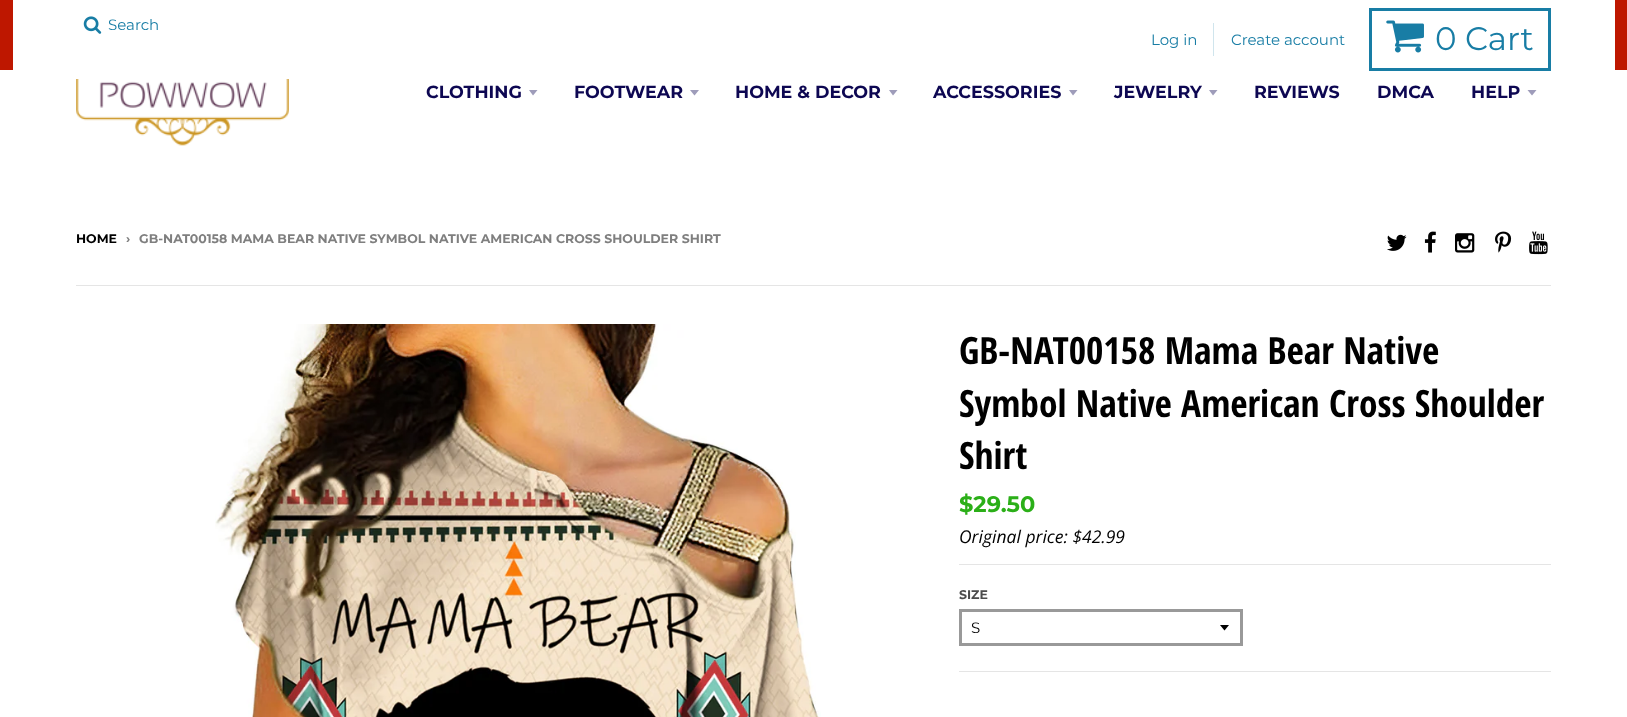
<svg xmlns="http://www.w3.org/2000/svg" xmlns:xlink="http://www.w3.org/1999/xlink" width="1627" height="717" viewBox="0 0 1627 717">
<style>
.cls-1{font:15px Montserrat;fill:#187da5}
.cls-2{font:32.5px Montserrat;fill:#187da5}
.cls-3{font:bold 17.5px Montserrat;fill:#0d0752}
.cls-4{font:bold 12.5px Montserrat;fill:#000000}
.cls-5{font:bold 12.5px Montserrat;fill:#7f7f7f}
.cls-6{font:bold 37.5px Open Sans Condensed;fill:#000000}
.cls-7{font:bold 22.5px Montserrat;fill:#2baf18}
.cls-8{font:italic 17.5px Open Sans;fill:#000000}
.cls-9{font:bold 12.5px Montserrat;fill:#4c4c4c}
.cls-10{font:15px Montserrat;fill:#000000}
</style>
<rect width="100%" height="100%" fill="#ffffff"/>
<rect fill="#be1700" x="0" y="0" width="1627" height="70"/>
<rect fill="#ffffff" x="13" y="0" width="1602" height="70"/>
<image xlink:href="image0.png" x="83" y="16" width="19" height="18"/>
<rect fill="#d0e5ed" x="1213" y="23" width="1" height="33"/>
<rect fill="none" stroke="#187da5" stroke-width="3" x="1370.5" y="9.5" width="179" height="60"/>
<image xlink:href="image1.png" x="1386" y="20" width="38" height="33"/>
<image xlink:href="image2.png" x="76" y="79" width="213" height="67"/>
<path fill="#9e9cba" d="M529 90L533 95.5L537.5 90Z"/>
<path fill="#9e9cba" d="M690 90L694.5 95.5L699 90Z"/>
<path fill="#9e9cba" d="M889 90L893 95.5L897.5 90Z"/>
<path fill="#9e9cba" d="M1069 90L1073 95.5L1077.5 90Z"/>
<path fill="#9e9cba" d="M1209 90L1213 95.5L1217.5 90Z"/>
<path fill="#9e9cba" d="M1527.5 90L1532 95.5L1536.5 90Z"/>
<image xlink:href="image3.png" x="1387" y="234" width="20" height="17"/>
<image xlink:href="image4.png" x="1424" y="231" width="12" height="22"/>
<image xlink:href="image5.png" x="1455" y="233" width="20" height="20"/>
<image xlink:href="image6.png" x="1495" y="231" width="17" height="22"/>
<image xlink:href="image7.png" x="1529" y="231" width="19" height="24"/>
<rect fill="#e5e5e5" x="76" y="285" width="1475" height="1"/>
<image xlink:href="image8.png" x="215" y="324" width="606" height="393"/>
<rect fill="#e5e5e5" x="959" y="564" width="592" height="1"/>
<rect fill="#e5e5e5" x="959" y="671" width="592" height="1"/>
<path fill="#000000" d="M1220 625L1224.5 630.5L1229 625Z"/>
<rect fill="none" stroke="#999999" stroke-width="3" x="960.5" y="610.5" width="281" height="34"/>
<text class="cls-1" x="108" y="30">Search</text>
<text class="cls-1" x="1151" y="45">Log in</text>
<text class="cls-1" x="1231" y="45">Create account</text>
<text class="cls-2" x="1435" y="50">0 Cart</text>
<text class="cls-3" x="426" y="98">CLOTHING</text>
<text class="cls-3" x="574" y="98">FOOTWEAR</text>
<text class="cls-3" x="735" y="98">HOME &amp; DECOR</text>
<text class="cls-3" x="933" y="98">ACCESSORIES</text>
<text class="cls-3" x="1114" y="98">JEWELRY</text>
<text class="cls-3" x="1254" y="98">REVIEWS</text>
<text class="cls-3" x="1377" y="98">DMCA</text>
<text class="cls-3" x="1471" y="98">HELP</text>
<text class="cls-4" x="76" y="243">HOME</text>
<text class="cls-5" x="126" y="243">›</text>
<text class="cls-5" x="139" y="243">GB-NAT00158 MAMA BEAR NATIVE SYMBOL NATIVE AMERICAN CROSS SHOULDER SHIRT</text>
<text class="cls-6"><tspan x="959" y="364">GB-NAT00158 Mama Bear Native</tspan><tspan x="959" y="417">Symbol Native American Cross Shoulder</tspan><tspan x="959" y="469">Shirt</tspan></text>
<text class="cls-7" x="959" y="512">$29.50</text>
<text class="cls-8" x="959" y="543">Original price: $42.99</text>
<text class="cls-9" x="959" y="599">SIZE</text>
<text class="cls-10" x="971" y="633">S</text>
</svg>
